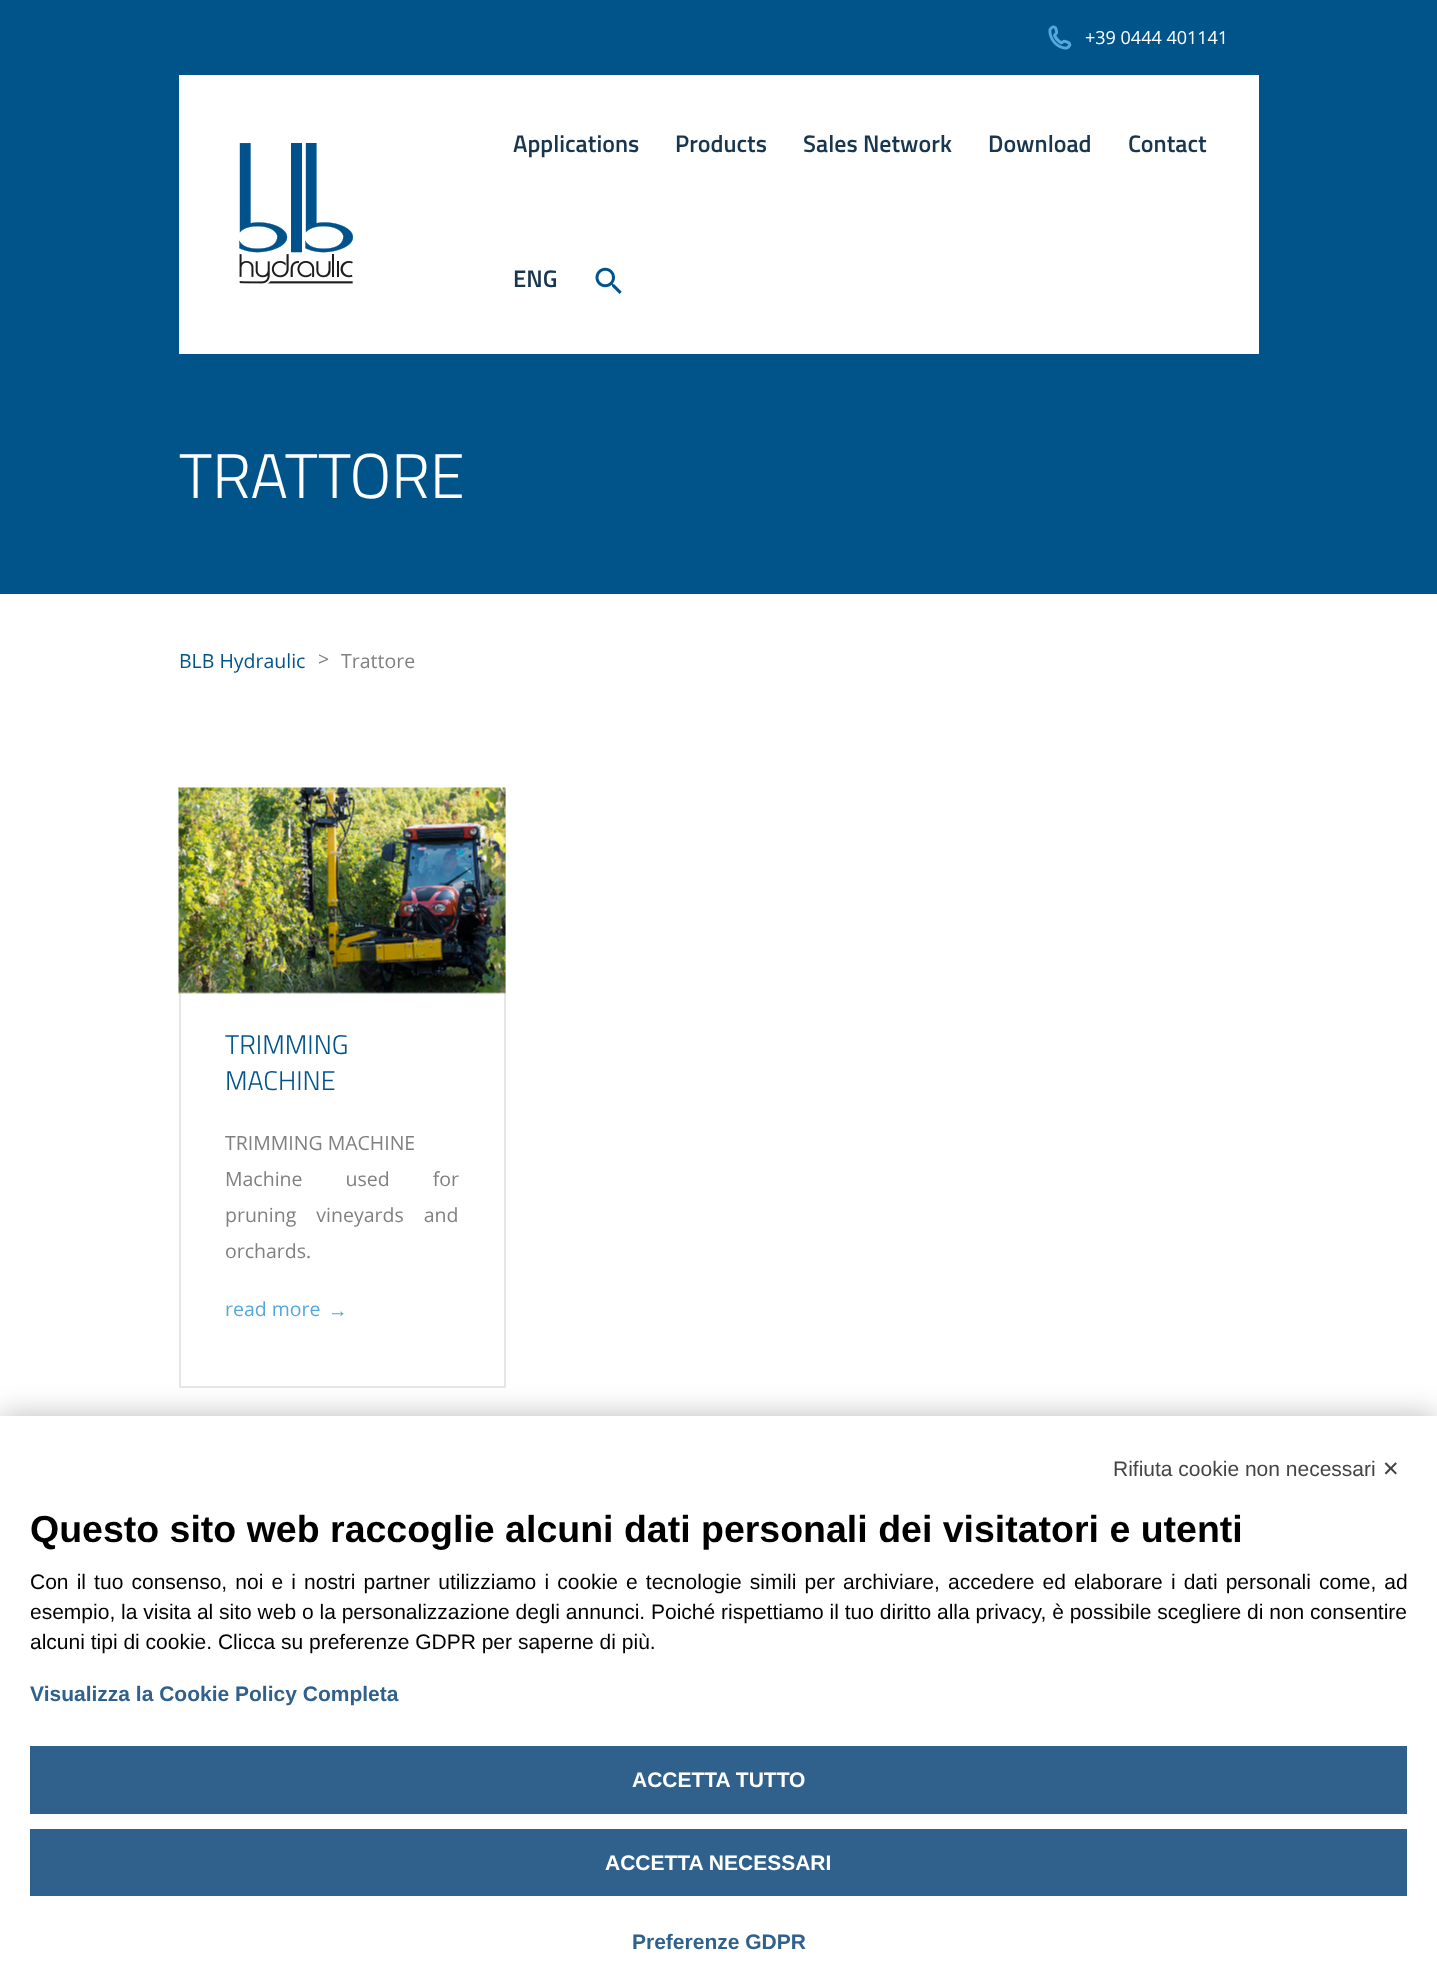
<svg xmlns="http://www.w3.org/2000/svg" xmlns:xlink="http://www.w3.org/1999/xlink" width="1437" height="1986" viewBox="0 0 1437 1986">
<style>
.cls-1{font:18px Open Sans;fill:#ffffff}
.cls-2{font:600 24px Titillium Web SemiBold;fill:#183650}
.cls-3{font:300 63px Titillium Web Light;fill:#ffffff}
.cls-4{font:19.5px Open Sans;fill:#00548a}
.cls-5{font:19.5px Open Sans;fill:#808080}
.cls-6{font:300 27px Titillium Web Light;fill:#00548a}
.cls-7{font:19.5px Open Sans;fill:#53a8e0}
.cls-8{font:19.5px Liberation Serif;fill:#53a8e0}
.cls-9{font:21px Liberation Sans;fill:#444444}
.cls-10{font:21px DejaVu Sans;fill:#444444}
.cls-11{font:bold 37.5px Liberation Sans;fill:#000000}
.cls-12{font:21px Liberation Sans;fill:#000000}
.cls-13{font:bold 21px Liberation Sans;fill:#30618c}
.cls-14{font:bold 21px Liberation Sans;fill:#ffffff}
</style>
<rect width="100%" height="100%" fill="#ffffff"/>
<rect fill="#00548a" x="0" y="0" width="1437" height="594"/>
<image xlink:href="image0.png" x="1048" y="25" width="24" height="25"/>
<rect fill="#ffffff" x="179" y="75" width="1080" height="279"/>
<image xlink:href="image1.png" x="239" y="143" width="115" height="141"/>
<image xlink:href="image2.png" x="595" y="267" width="27" height="27"/>
<rect fill="none" stroke="#e6e6e6" stroke-width="2" x="180" y="789" width="325" height="598" rx="0.5"/>
<image xlink:href="image3.png" x="178" y="787" width="328" height="207"/>
<rect fill="#000000" fill-opacity="0.27" filter="blur(15px)" x="0" y="1416" width="1437" height="570"/>
<rect fill="#ffffff" x="0" y="1416" width="1437" height="570"/>
<rect fill="#30618c" x="30" y="1746" width="1377" height="68"/>
<rect fill="#30618c" x="30" y="1829" width="1377" height="67"/>
<text class="cls-1" x="1085" y="44">+39 0444 401141</text>
<text class="cls-2" x="513" y="152">Applications</text>
<text class="cls-2" x="675" y="152">Products</text>
<text class="cls-2" x="803" y="152">Sales Network</text>
<text class="cls-2" x="988" y="152">Download</text>
<text class="cls-2" x="1128" y="152">Contact</text>
<text class="cls-2" x="513" y="287">ENG</text>
<text class="cls-3" x="179" y="498">TRATTORE</text>
<text class="cls-4" x="179" y="668">BLB Hydraulic</text>
<text class="cls-5" x="318" y="666">&gt;</text>
<text class="cls-5" x="341" y="668">Trattore</text>
<text class="cls-6"><tspan x="225" y="1054">TRIMMING</tspan><tspan x="225" y="1090">MACHINE</tspan></text>
<text class="cls-5"><tspan x="225" y="1150">TRIMMING MACHINE</tspan><tspan x="225" y="1186" word-spacing="38">Machine used for</tspan><tspan x="225" y="1222" word-spacing="15">pruning vineyards and</tspan><tspan x="225" y="1258">orchards.</tspan></text>
<text class="cls-7" x="225" y="1316">read more</text>
<text class="cls-8" x="328" y="1317">→</text>
<text class="cls-9" x="1113" y="1476">Rifiuta cookie non necessari</text>
<text class="cls-10" x="1382" y="1476">✕</text>
<text class="cls-11" x="30" y="1542">Questo sito web raccoglie alcuni dati personali dei visitatori e utenti</text>
<text class="cls-12"><tspan x="30" y="1589" word-spacing="2.3">Con il tuo consenso, noi e i nostri partner utilizziamo i cookie e tecnologie simili per archiviare, accedere ed elaborare i dati personali come, ad</tspan><tspan x="30" y="1619">esempio, la visita al sito web o la personalizzazione degli annunci. Poiché rispettiamo il tuo diritto alla privacy, è possibile scegliere di non consentire</tspan><tspan x="30" y="1649">alcuni tipi di cookie. Clicca su preferenze GDPR per saperne di più.</tspan></text>
<text class="cls-13" x="30" y="1701">Visualizza la Cookie Policy Completa</text>
<text class="cls-14" x="632" y="1787">ACCETTA TUTTO</text>
<text class="cls-14" x="605" y="1870">ACCETTA NECESSARI</text>
<text class="cls-13" x="632" y="1949">Preferenze GDPR</text>
</svg>
